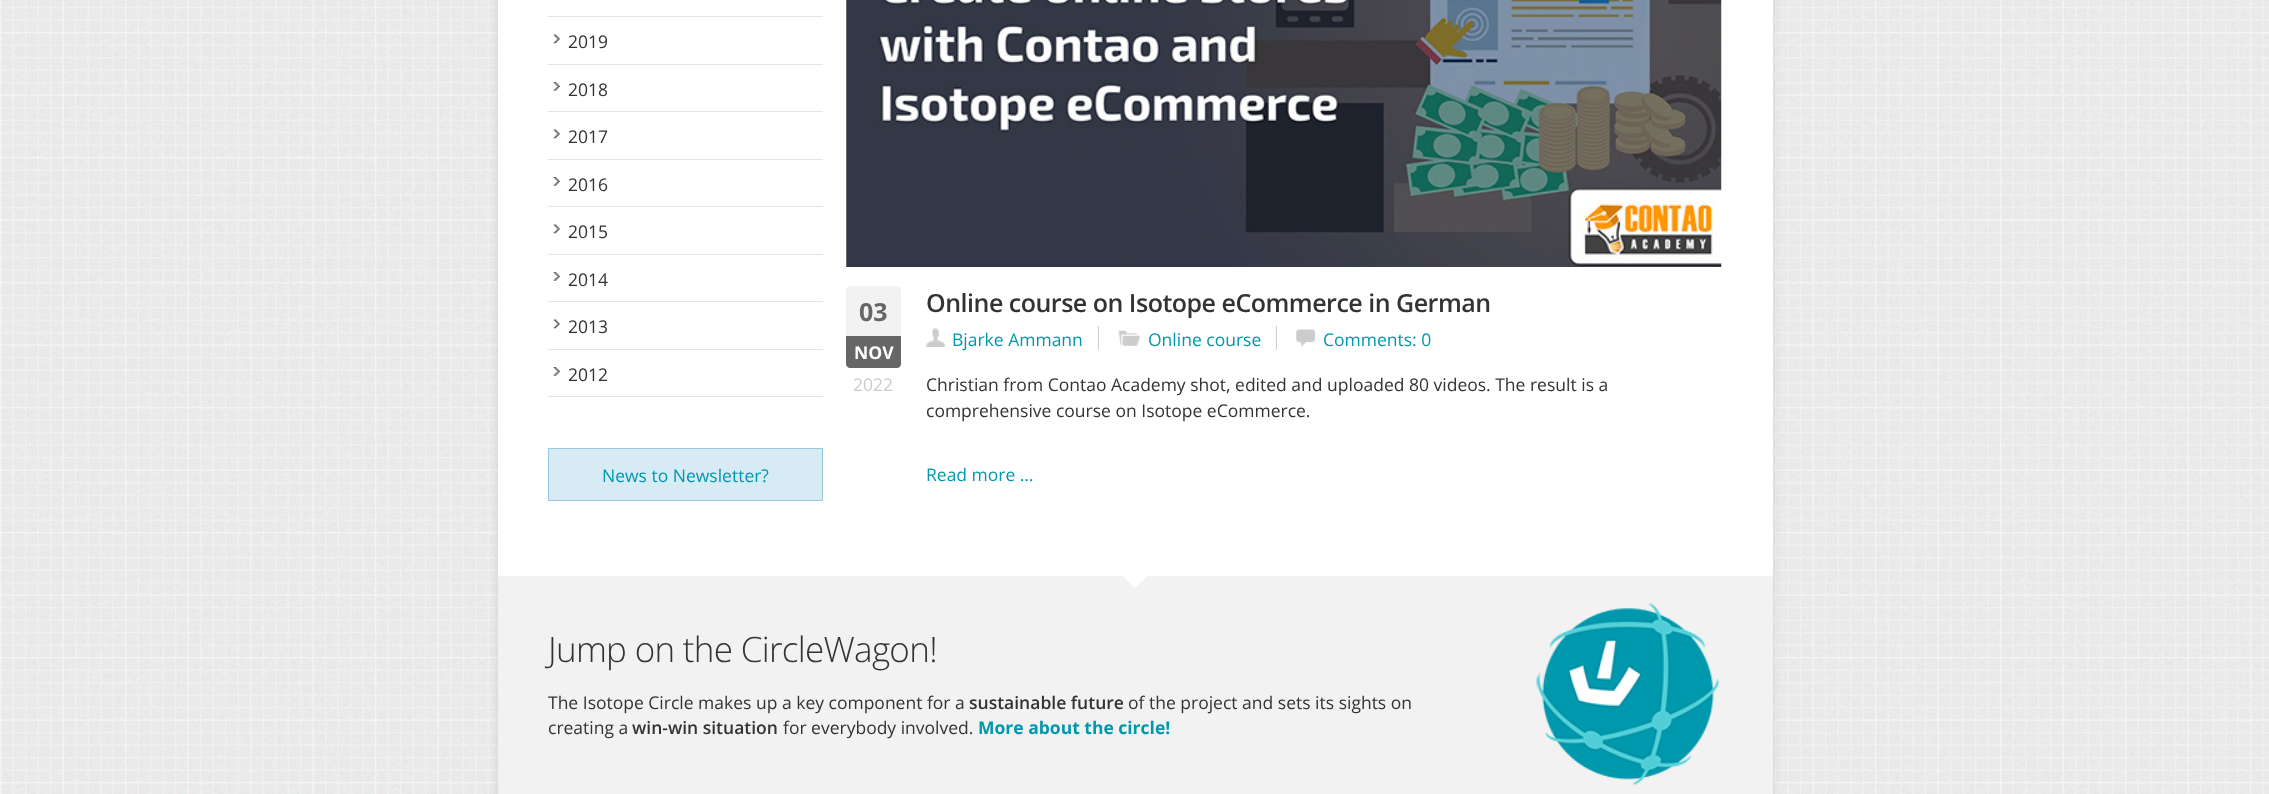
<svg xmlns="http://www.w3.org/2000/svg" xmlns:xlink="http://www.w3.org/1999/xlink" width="2269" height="794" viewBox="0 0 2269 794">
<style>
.cls-1{font:17.5px Open Sans;fill:#333333}
.cls-2{font:17.5px Open Sans;fill:#0098ac}
.cls-3{font:bold 25px Open Sans;fill:#666666}
.cls-4{font:bold 17.5px Open Sans;fill:#ffffff}
.cls-5{font:17.5px Open Sans;fill:#cccccc}
.cls-6{font:600 25px Open Sans;letter-spacing:-0.5px;fill:#333333}
.cls-7{font:300 35px Open Sans;letter-spacing:-0.7px;fill:#333333}
.cls-8{font:600 17.5px Open Sans;fill:#333333}
.cls-9{font:bold 17.5px Open Sans;fill:#0098ac}
</style>
<rect width="100%" height="100%" fill="#ffffff"/>
<image xlink:href="image0.png" x="0" y="0" width="2269" height="794"/>
<rect fill="#000000" fill-opacity="0.11" filter="blur(5px)" x="498" y="-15" width="1275" height="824"/>
<rect fill="#ffffff" x="498" y="0" width="1275" height="576"/>
<rect fill="#e5e5e5" x="548" y="16" width="275" height="1"/>
<rect fill="#e5e5e5" x="548" y="64" width="275" height="1"/>
<image xlink:href="image1.png" x="553" y="34" width="7" height="10"/>
<rect fill="#e5e5e5" x="548" y="111" width="275" height="1"/>
<image xlink:href="image2.png" x="553" y="82" width="7" height="9"/>
<rect fill="#e5e5e5" x="548" y="159" width="275" height="1"/>
<image xlink:href="image1.png" x="553" y="129" width="7" height="10"/>
<rect fill="#e5e5e5" x="548" y="206" width="275" height="1"/>
<image xlink:href="image2.png" x="553" y="177" width="7" height="9"/>
<rect fill="#e5e5e5" x="548" y="254" width="275" height="1"/>
<image xlink:href="image1.png" x="553" y="224" width="7" height="10"/>
<rect fill="#e5e5e5" x="548" y="301" width="275" height="1"/>
<image xlink:href="image2.png" x="553" y="272" width="7" height="9"/>
<rect fill="#e5e5e5" x="548" y="349" width="275" height="1"/>
<image xlink:href="image1.png" x="553" y="319" width="7" height="10"/>
<rect fill="#e5e5e5" x="548" y="396" width="275" height="1"/>
<image xlink:href="image2.png" x="553" y="367" width="7" height="9"/>
<rect fill="#d7ebf5" stroke="#99c7de" x="548.5" y="448.5" width="274" height="52"/>
<image xlink:href="image3.png" x="846" y="0" width="876" height="267"/>
<path fill="#f2f2f2" d="M850 286H897C899 286 901 288 901 290V336H846V290C846 288 848 286 850 286Z"/>
<path fill="#666666" d="M846 336H901V364C901 366 899 368 897 368H850C848 368 846 366 846 364Z"/>
<image xlink:href="image4.png" x="926" y="328" width="19" height="19"/>
<rect fill="#cccccc" x="1098" y="326" width="1" height="24"/>
<image xlink:href="image5.png" x="1118" y="330" width="22" height="16"/>
<rect fill="#cccccc" x="1276" y="326" width="1" height="24"/>
<image xlink:href="image6.png" x="1296" y="329" width="19" height="18"/>
<rect fill="#f2f2f2" x="498" y="576" width="1275" height="218"/>
<image xlink:href="image7.png" x="1123" y="576" width="24" height="12"/>
<image xlink:href="image8.png" x="1536" y="603" width="183" height="182"/>
<text class="cls-1" x="568" y="48">2019</text>
<text class="cls-1" x="568" y="96">2018</text>
<text class="cls-1" x="568" y="143">2017</text>
<text class="cls-1" x="568" y="191">2016</text>
<text class="cls-1" x="568" y="238">2015</text>
<text class="cls-1" x="568" y="286">2014</text>
<text class="cls-1" x="568" y="333">2013</text>
<text class="cls-1" x="568" y="381">2012</text>
<text class="cls-2" x="602" y="482">News to Newsletter?</text>
<text class="cls-3" x="859" y="321">03</text>
<text class="cls-4" x="854" y="359">NOV</text>
<text class="cls-5" x="853" y="391">2022</text>
<text class="cls-6" x="926" y="312">Online course on Isotope eCommerce in German</text>
<text class="cls-2" x="952" y="346">Bjarke Ammann</text>
<text class="cls-2" x="1148" y="346">Online course</text>
<text class="cls-2" x="1323" y="346">Comments: 0</text>
<text class="cls-1"><tspan x="926" y="391">Christian from Contao Academy shot, edited and uploaded 80 videos. The result is a</tspan><tspan x="926" y="417">comprehensive course on Isotope eCommerce.</tspan></text>
<text class="cls-2" x="926" y="481">Read more …</text>
<text class="cls-7" x="548" y="662">Jump on the CircleWagon!</text>
<text class="cls-1" x="548" y="709">The Isotope Circle makes up a key component for a</text>
<text class="cls-8" x="969" y="709">sustainable future</text>
<text class="cls-1" x="1128" y="709">of the project and sets its sights on</text>
<text class="cls-1" x="548" y="734">creating a</text>
<text class="cls-8" x="632" y="734">win-win situation</text>
<text class="cls-1" x="783" y="734">for everybody involved.</text>
<text class="cls-9" x="978" y="734">More about the circle!</text>
</svg>
